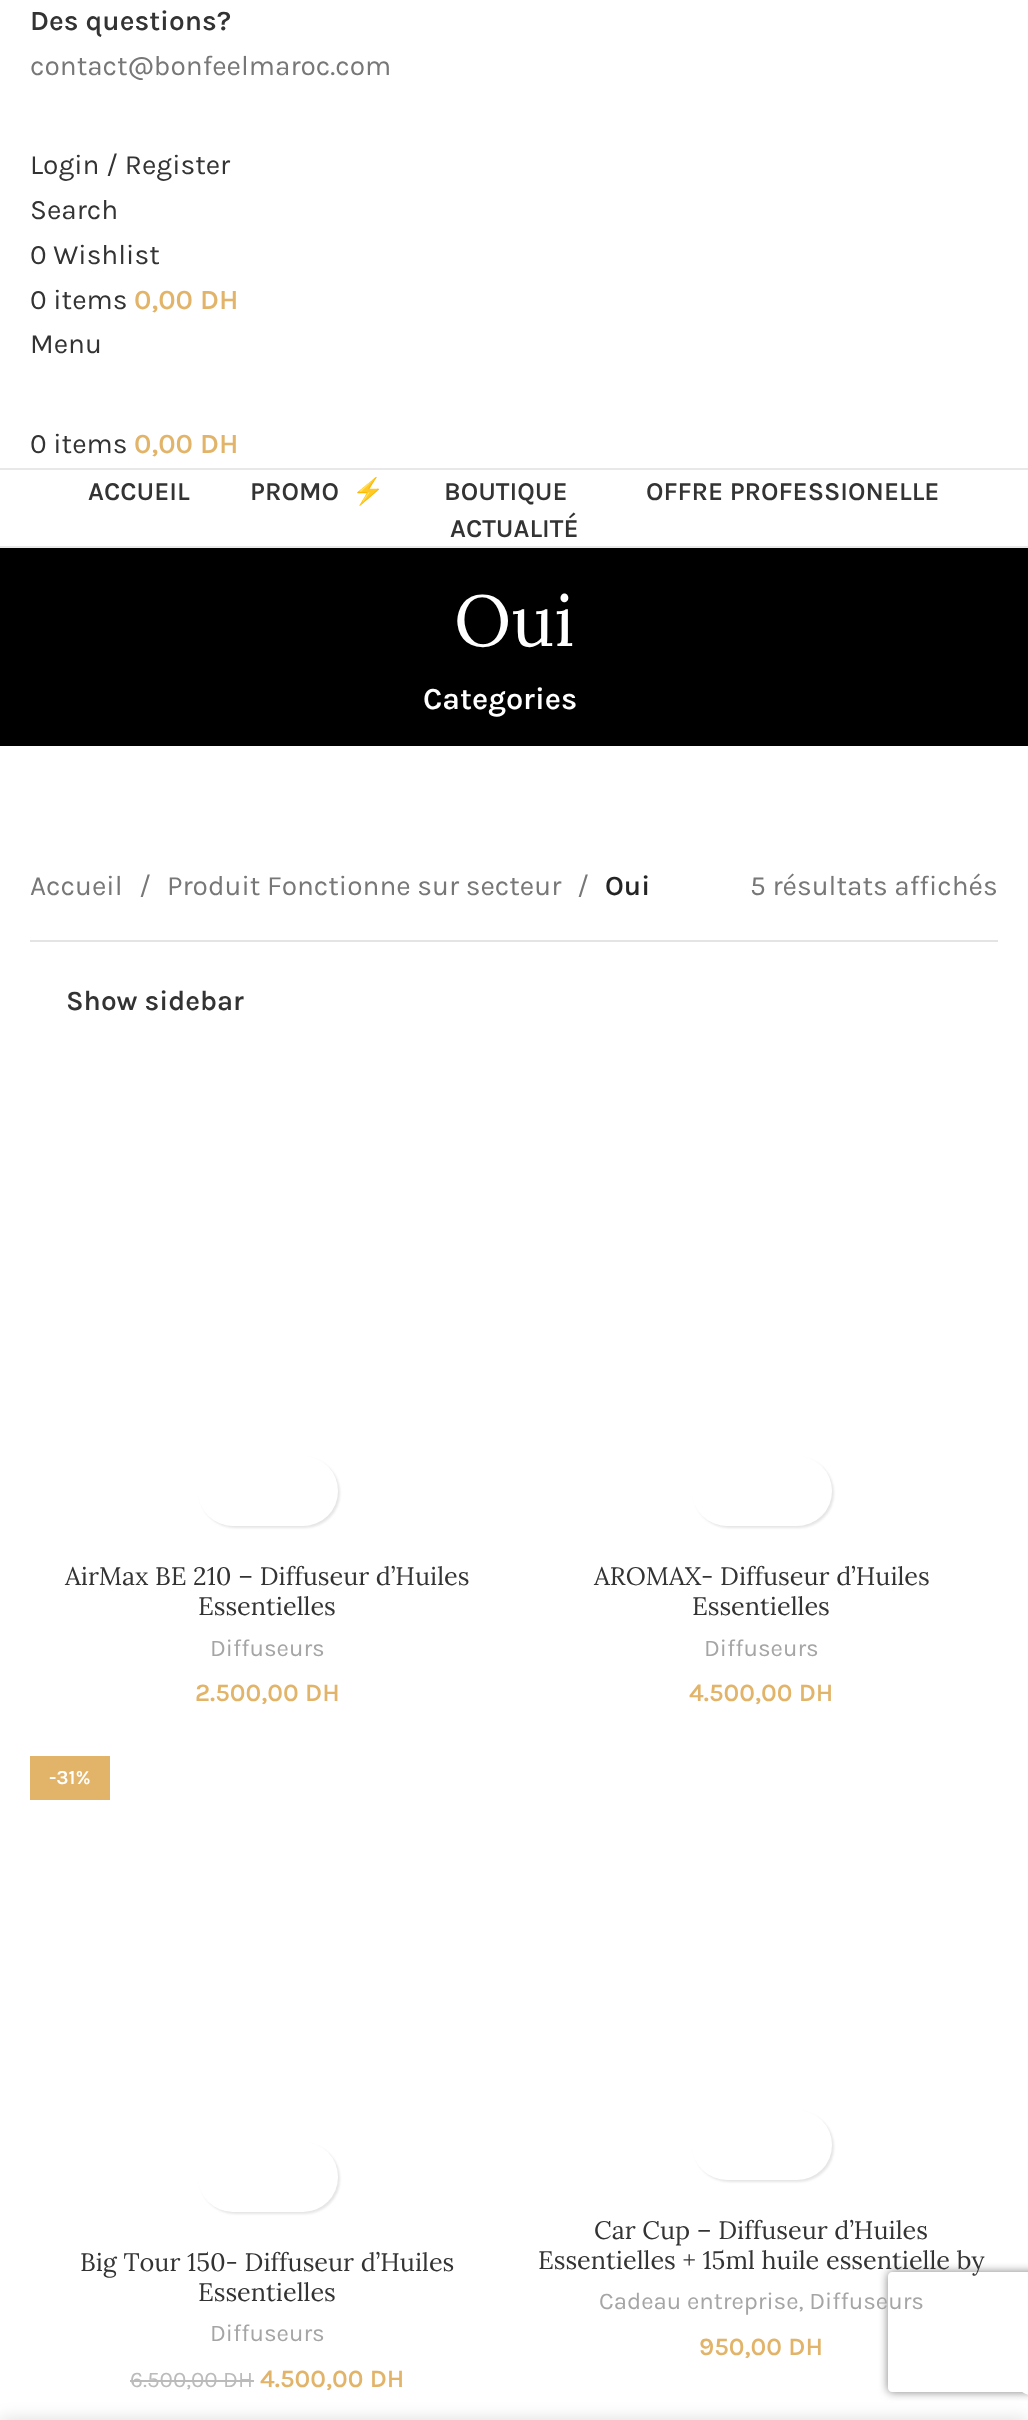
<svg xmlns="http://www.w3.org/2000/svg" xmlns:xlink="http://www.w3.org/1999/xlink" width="1028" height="2420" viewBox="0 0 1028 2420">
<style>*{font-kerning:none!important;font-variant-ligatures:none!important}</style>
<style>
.cls-1{font:600 28px Karla;fill:#333333}
.cls-2{font:28px Karla;fill:#777777}
.cls-3{font:28px Karla;fill:#333333}
.cls-4{font:600 28px Karla;fill:#e2b46a}
.cls-5{font:600 26px Karla;fill:#333333}
.cls-6{font:bold 26px Noto Color Emoji;fill:#333333}
.cls-7{font:72px Lora;fill:#ffffff}
.cls-8{font:600 30.75px Karla;fill:#ffffff}
.cls-9{font:600 28px Karla;fill:#242424}
.cls-10{font:25.25px Lora;fill:#333333}
.cls-11{font:24px Karla;fill:#a5a5a5}
.cls-12{font:600 25.25px Karla;fill:#e2b46a}
.cls-13{font:600 20px Karla;fill:#ffffff}
.cls-14{font:22.5px Karla;fill:#bbbbbb}
</style>
<defs>
<clipPath id="clip1"><path d="M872 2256H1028V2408H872ZM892 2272H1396C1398 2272 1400 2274 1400 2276V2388C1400 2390 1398 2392 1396 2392H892C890 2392 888 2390 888 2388V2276C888 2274 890 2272 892 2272Z" clip-rule="evenodd"/></clipPath>
</defs>
<rect width="100%" height="100%" fill="#ffffff"/>
<rect fill="#e8e8e8" x="0" y="468" width="1028" height="2"/>
<rect fill="#e8e8e8" x="0" y="546" width="1028" height="2"/>
<rect fill="#000000" x="0" y="548" width="1028" height="198"/>
<rect fill="#e4e4e4" x="30" y="940" width="968" height="2"/>
<rect fill="#000000" fill-opacity="0.1" filter="blur(1px)" x="200" y="1458" width="140" height="70" rx="35"/>
<rect fill="#ffffff" x="198" y="1456" width="140" height="70" rx="35"/>
<rect fill="#000000" fill-opacity="0.1" filter="blur(1px)" x="694" y="1458" width="140" height="70" rx="35"/>
<rect fill="#ffffff" x="692" y="1456" width="140" height="70" rx="35"/>
<rect fill="#e2b46a" x="30" y="1756" width="80" height="44"/>
<rect fill="#000000" fill-opacity="0.1" filter="blur(1px)" x="200" y="2144" width="140" height="70" rx="35"/>
<rect fill="#ffffff" x="198" y="2142" width="140" height="70" rx="35"/>
<rect fill="#bbbbbb" x="130" y="2380" width="124" height="2"/>
<rect fill="#000000" fill-opacity="0.1" filter="blur(1px)" x="694" y="2112" width="140" height="70" rx="35"/>
<rect fill="#ffffff" x="692" y="2110" width="140" height="70" rx="35"/>
<g clip-path="url(#clip1)">
<rect fill="#808080" filter="blur(5px)" x="888" y="2272" width="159" height="120" rx="4"/>
</g>
<rect fill="#ffffff" x="1004" y="2316" width="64" height="80" rx="40"/>
<rect fill="#000000" fill-opacity="0.14" filter="blur(9px)" x="0" y="2420" width="1028" height="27"/>
<text class="cls-1" x="30" y="30">Des questions?</text>
<text class="cls-2" x="30" y="75">contact@bonfeelmaroc.com</text>
<text class="cls-3"><tspan x="30" y="174">Login / Register</tspan><tspan x="30" y="219">Search</tspan><tspan x="30" y="264">0 Wishlist</tspan><tspan x="30" y="309">0 items</tspan></text>
<text class="cls-4" x="134" y="309">0,00 DH</text>
<text class="cls-3" x="30" y="353">Menu</text>
<text class="cls-3" x="30" y="453">0 items</text>
<text class="cls-4" x="134" y="453">0,00 DH</text>
<text class="cls-5" x="88" y="500">ACCUEIL</text>
<text class="cls-5" x="250" y="500">PROMO</text>
<text class="cls-6" x="352" y="500">⚡</text>
<text class="cls-5" x="444" y="500">BOUTIQUE</text>
<text class="cls-5" x="646" y="500">OFFRE PROFESSIONELLE</text>
<text class="cls-5" x="450" y="537">ACTUALITÉ</text>
<text class="cls-7" x="454" y="646">Oui</text>
<text class="cls-8" x="423" y="709">Categories</text>
<text class="cls-2" x="30" y="895">Accueil</text>
<text class="cls-2" x="139" y="895">/</text>
<text class="cls-2" x="167" y="895">Produit Fonctionne sur secteur</text>
<text class="cls-2" x="577" y="895">/</text>
<text class="cls-9" x="605" y="895">Oui</text>
<text class="cls-2" x="750" y="895">5 résultats affichés</text>
<text class="cls-1" x="66" y="1010">Show sidebar</text>
<text class="cls-10" x="65" y="1585">AirMax BE 210 – Diffuseur d’Huiles</text>
<text class="cls-10" x="198" y="1615">Essentielles</text>
<text class="cls-11" x="210" y="1656">Diffuseurs</text>
<text class="cls-12" x="195" y="1701">2.500,00 DH</text>
<text class="cls-10" x="594" y="1585">AROMAX- Diffuseur d’Huiles</text>
<text class="cls-10" x="692" y="1615">Essentielles</text>
<text class="cls-11" x="704" y="1656">Diffuseurs</text>
<text class="cls-12" x="689" y="1701">4.500,00 DH</text>
<text class="cls-13" x="49" y="1784">-31%</text>
<text class="cls-10" x="80" y="2271">Big Tour 150- Diffuseur d’Huiles</text>
<text class="cls-10" x="198" y="2301">Essentielles</text>
<text class="cls-11" x="210" y="2341">Diffuseurs</text>
<text class="cls-14" x="130" y="2387">6.500,00 DH</text>
<text class="cls-12" x="260" y="2387">4.500,00 DH</text>
<text class="cls-10" x="594" y="2239">Car Cup – Diffuseur d’Huiles</text>
<text class="cls-10" x="538" y="2269">Essentielles + 15ml huile essentielle by</text>
<text class="cls-11" x="599" y="2309">Cadeau entreprise, Diffuseurs</text>
<text class="cls-12" x="699" y="2355">950,00 DH</text>
</svg>
